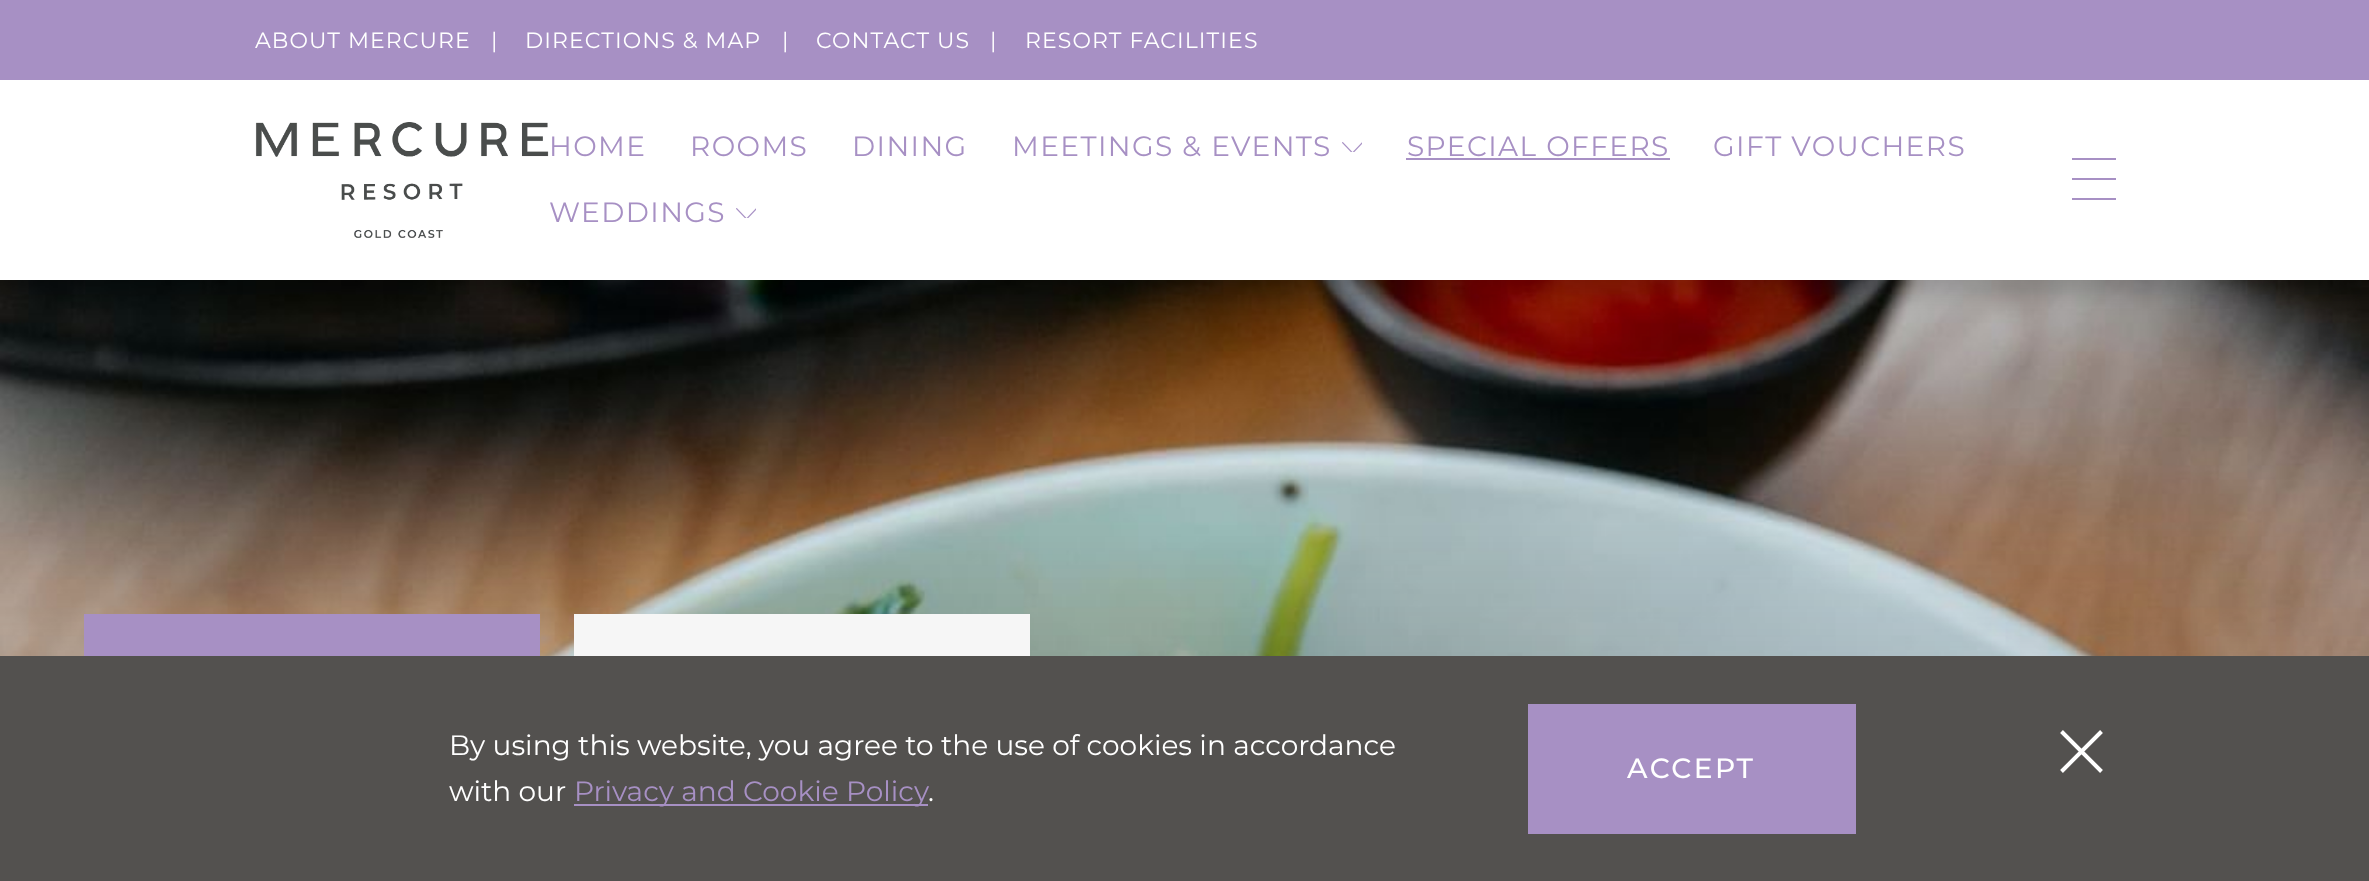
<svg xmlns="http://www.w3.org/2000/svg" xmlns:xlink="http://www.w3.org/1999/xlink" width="2369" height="881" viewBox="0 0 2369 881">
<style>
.cls-1{font:22px Montserrat;letter-spacing:1.1px;fill:#ffffff}
.cls-2{font:28px Montserrat;letter-spacing:1.4px;fill:#a790c4}
.cls-3{font:28px Montserrat;fill:#ffffff}
.cls-4{font:28px Montserrat;fill:#a790c4}
.cls-5{font:500 28px Montserrat;letter-spacing:2.5px;fill:#ffffff}
</style>
<rect width="100%" height="100%" fill="#ffffff"/>
<image xlink:href="image2.png" x="0" y="280" width="2369" height="376"/>
<rect fill="#000000" fill-opacity="0.16" filter="blur(10px)" x="0" y="94" width="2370" height="200"/>
<rect fill="#a790c4" x="0" y="0" width="2369" height="80"/>
<rect fill="#ffffff" x="0" y="80" width="2369" height="200"/>
<image xlink:href="image0.png" x="255" y="122" width="294" height="116"/>
<image xlink:href="image1.png" x="1342" y="142" width="20" height="10"/>
<rect fill="#a790c4" x="1406" y="158" width="264" height="2"/>
<image xlink:href="image1.png" x="736" y="208" width="20" height="10"/>
<rect fill="#a790c4" x="2072" y="158" width="44" height="2"/>
<rect fill="#a790c4" x="2072" y="178" width="44" height="2"/>
<rect fill="#a790c4" x="2072" y="198" width="44" height="2"/>
<rect fill="#a790c4" x="84" y="614" width="456" height="42"/>
<rect fill="#f6f6f6" x="574" y="614" width="456" height="42"/>
<rect fill="#53514f" x="0" y="656" width="2369" height="225"/>
<rect fill="#a790c4" x="574" y="804" width="354" height="2"/>
<rect fill="#a790c4" x="1528" y="704" width="328" height="130"/>
<path fill="none" stroke="#ffffff" stroke-width="4" d="M2061.5 731.5L2101.5 771.5M2101.5 731.5L2061.5 771.5"/>
<text class="cls-1" x="255" y="48">ABOUT MERCURE</text>
<text class="cls-1" x="491" y="48">|</text>
<text class="cls-1" x="525" y="48">DIRECTIONS &amp; MAP</text>
<text class="cls-1" x="782" y="48">|</text>
<text class="cls-1" x="816" y="48">CONTACT US</text>
<text class="cls-1" x="990" y="48">|</text>
<text class="cls-1" x="1025" y="48">RESORT FACILITIES</text>
<text class="cls-2" x="549" y="156">HOME</text>
<text class="cls-2" x="690" y="156">ROOMS</text>
<text class="cls-2" x="852" y="156">DINING</text>
<text class="cls-2" x="1012" y="156">MEETINGS &amp; EVENTS</text>
<text class="cls-2" x="1407" y="156">SPECIAL OFFERS</text>
<text class="cls-2" x="1713" y="156">GIFT VOUCHERS</text>
<text class="cls-2" x="549" y="222">WEDDINGS</text>
<text class="cls-3"><tspan x="449" y="755">By using this website, you agree to the use of cookies in accordance</tspan><tspan x="449" y="801">with our</tspan></text>
<text class="cls-4" x="574" y="801">Privacy and Cookie Policy</text>
<text class="cls-3" x="928" y="801">.</text>
<text class="cls-5" x="1627" y="778">ACCEPT</text>
</svg>
